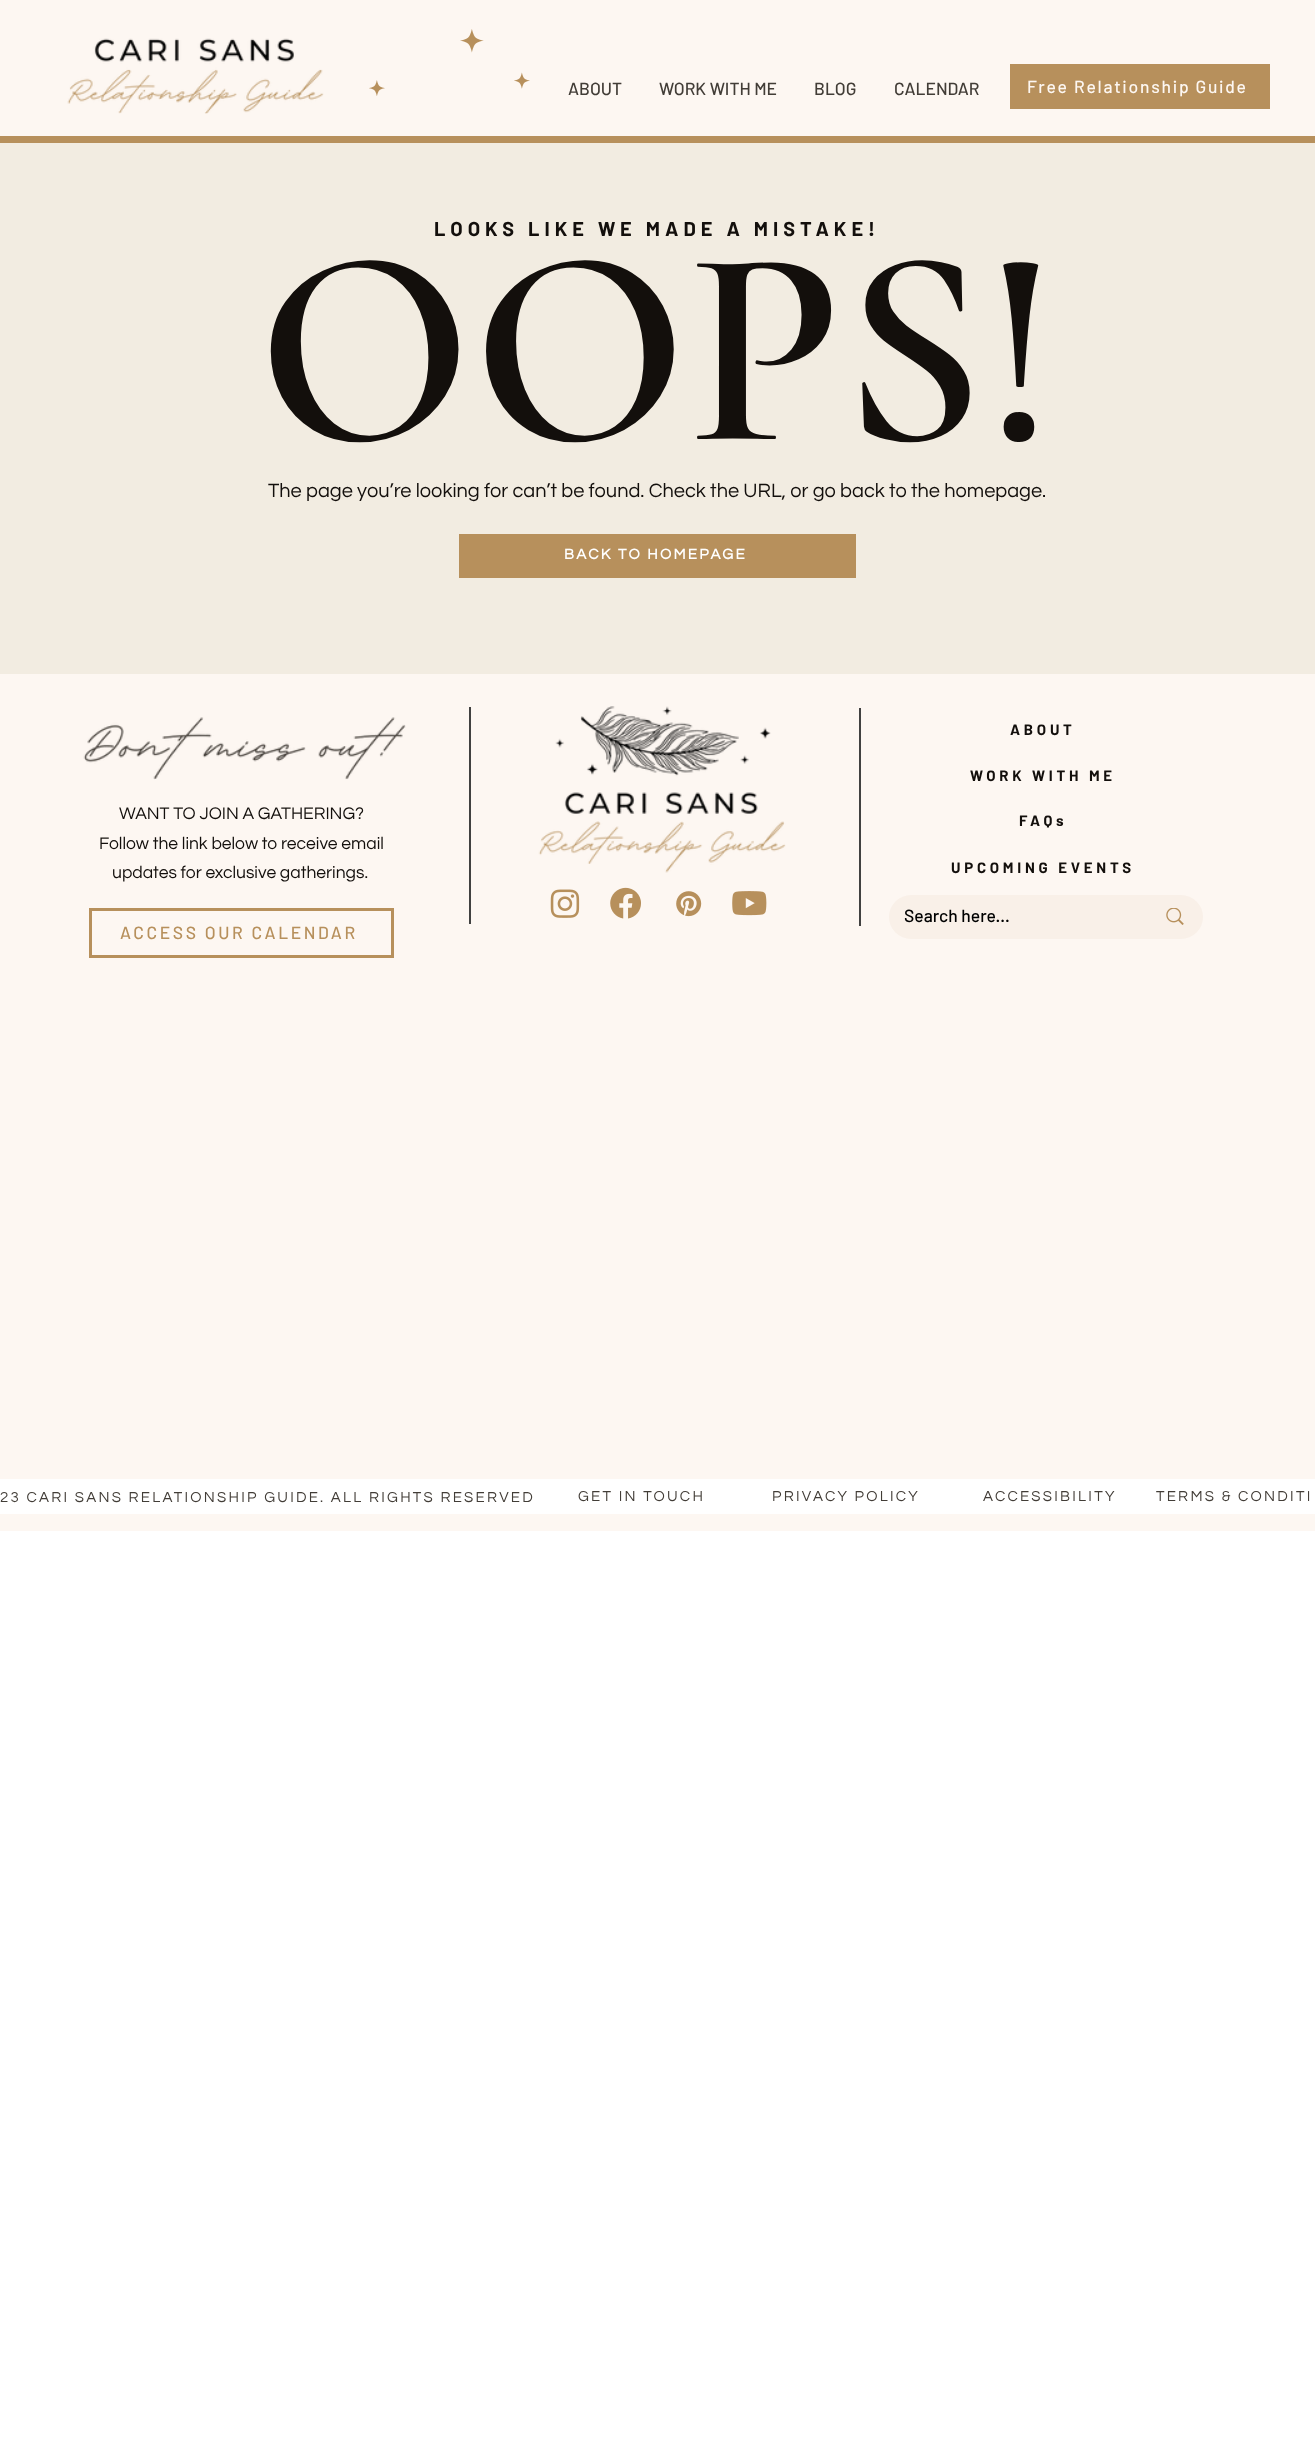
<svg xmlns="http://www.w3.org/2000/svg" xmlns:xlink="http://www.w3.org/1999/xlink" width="1315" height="2449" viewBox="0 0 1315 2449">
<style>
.cls-1{font:500 17.5px Barlow;fill:#423d37}
.cls-2{font:500 17.5px Barlow;letter-spacing:1.75px;fill:#fdf7f2}
.cls-3{font:bold 20px Barlow;letter-spacing:5px;fill:#130f0c}
.cls-4{font:600 281px Cormorant Garamond;fill:#130f0c}
.cls-5{font:20px Questrial;fill:#130f0c}
.cls-6{font:bold 15px Questrial;letter-spacing:2.25px;fill:#ffffff}
.cls-7{font:17.5px Questrial;fill:#130f0c}
.cls-8{font:500 17.5px Barlow;letter-spacing:2.6px;fill:#b7905c}
.cls-9{font:bold 15px Barlow;letter-spacing:3.75px;fill:#130f0c}
.cls-10{font:500 17.5px Barlow;fill:#000000}
.cls-11{font:15px Questrial;letter-spacing:2.25px;fill:#423d37}
</style>
<rect width="100%" height="100%" fill="#ffffff"/>
<rect fill="#b7905c" x="0" y="136" width="1315" height="7"/>
<rect fill="#fdf7f2" x="0" y="0" width="1315" height="136"/>
<image xlink:href="image0.png" x="67" y="38" width="257" height="76"/>
<image xlink:href="image1.png" x="369" y="80" width="16" height="16"/>
<image xlink:href="image2.png" x="460" y="29" width="24" height="24"/>
<image xlink:href="image3.png" x="514" y="72" width="16" height="17"/>
<rect fill="#b7905c" x="1010" y="64" width="260" height="45"/>
<rect fill="#f2ece1" x="0" y="143" width="1315" height="531"/>
<rect fill="#b7905c" x="459" y="534" width="397" height="44"/>
<rect fill="#fdf7f2" x="0" y="674" width="1315" height="857"/>
<image xlink:href="image4.png" x="83" y="717" width="323" height="63"/>
<rect fill="none" stroke="#b7905c" stroke-width="3" x="90.5" y="909.5" width="302" height="47"/>
<rect fill="#414141" x="469" y="707" width="2" height="217"/>
<image xlink:href="image5.png" x="538" y="706" width="248" height="167"/>
<image xlink:href="image6.png" x="550" y="889" width="30" height="29"/>
<image xlink:href="image7.png" x="610" y="887" width="31" height="32"/>
<image xlink:href="image8.png" x="676" y="891" width="26" height="26"/>
<image xlink:href="image9.png" x="732" y="891" width="35" height="25"/>
<rect fill="#414141" x="859" y="708" width="2" height="218"/>
<rect fill="#f9f0e8" x="889" y="895" width="314" height="44" rx="22"/>
<image xlink:href="image10.png" x="1166" y="908" width="18" height="17"/>
<rect fill="#ffffff" x="0" y="1479" width="1315" height="35"/>
<text class="cls-1" x="568" y="95">ABOUT</text>
<text class="cls-1" x="659" y="95">WORK WITH ME</text>
<text class="cls-1" x="814" y="95">BLOG</text>
<text class="cls-1" x="894" y="95">CALENDAR</text>
<text class="cls-2" x="1027" y="93">Free Relationship Guide</text>
<text class="cls-3" x="434" y="236">LOOKS LIKE WE MADE A MISTAKE!</text>
<text class="cls-4" x="257" y="439">OOPS!</text>
<text class="cls-5" x="268" y="497">The page you’re looking for can’t be found. Check the URL, or go back to the homepage.</text>
<text class="cls-6" x="564" y="559">BACK TO HOMEPAGE</text>
<text class="cls-7" x="119" y="819">WANT TO JOIN A GATHERING?</text>
<text class="cls-7" x="99" y="849">Follow the link below to receive email</text>
<text class="cls-7" x="112" y="878">updates for exclusive gatherings.</text>
<text class="cls-8" x="120" y="939">ACCESS OUR CALENDAR</text>
<text class="cls-9" x="1010" y="735">ABOUT</text>
<text class="cls-9" x="970" y="781">WORK WITH ME</text>
<text class="cls-9" x="1019" y="826">FAQs</text>
<text class="cls-9" x="951" y="873">UPCOMING EVENTS</text>
<text class="cls-10" x="904" y="922">Search here...</text>
<text class="cls-11" x="0" y="1502">23 CARI SANS RELATIONSHIP GUIDE. ALL RIGHTS RESERVED</text>
<text class="cls-11" x="578" y="1501">GET IN TOUCH</text>
<text class="cls-11" x="772" y="1501">PRIV</text>
<text class="cls-11" x="813" y="1501">ACY POLICY</text>
<text class="cls-11" x="983" y="1501">ACCESSIBILITY</text>
<text class="cls-11" x="1156" y="1501">TERMS &amp; CONDITI</text>
</svg>
